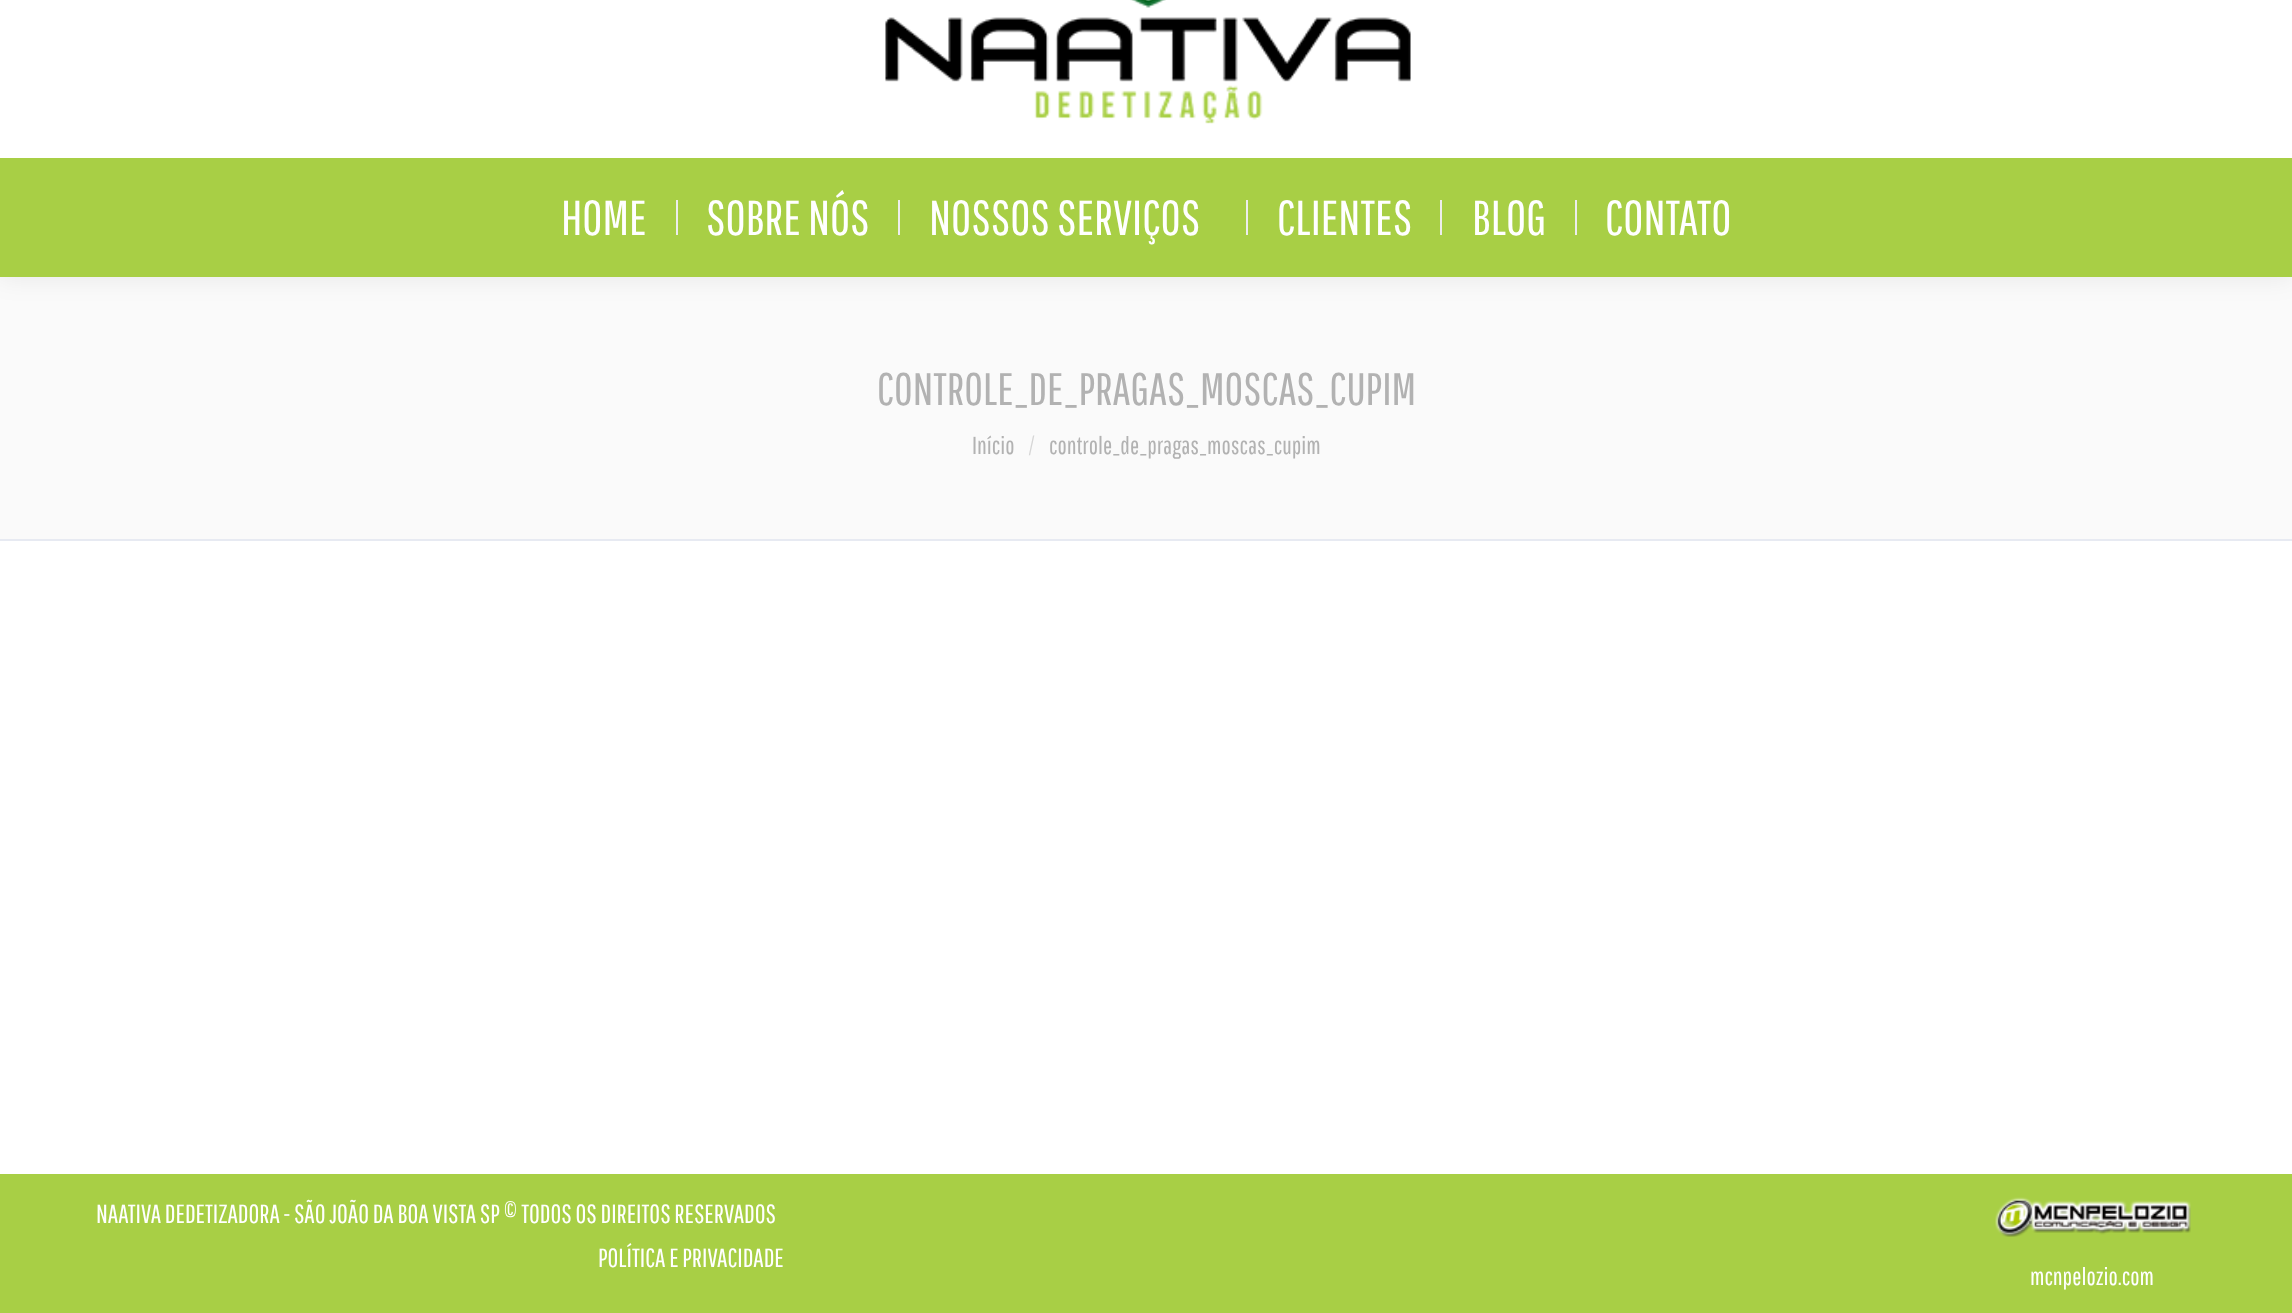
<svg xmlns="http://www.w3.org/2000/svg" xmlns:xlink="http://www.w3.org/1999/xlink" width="2292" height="1313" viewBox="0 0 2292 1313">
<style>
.cls-1{font:49px Pathway Gothic One;fill:#ffffff}
.cls-2{font:45.5px Pathway Gothic One;fill:#b2b2b2}
.cls-3{font:24.5px Pathway Gothic One;fill:#b2b2b2}
.cls-4{font:24.5px Pathway Gothic One;fill:#d6d6d6}
.cls-5{font:26.25px Pathway Gothic One;fill:#ffffff}
.cls-6{font:24.5px Pathway Gothic One;fill:#ffffff}
</style>
<rect width="100%" height="100%" fill="#ffffff"/>
<rect fill="#fafafa" x="0" y="277" width="2292" height="262"/>
<rect fill="#000000" fill-opacity="0.07" filter="blur(13px)" x="-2" y="-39" width="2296" height="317"/>
<rect fill="#ffffff" x="0" y="0" width="2292" height="158"/>
<image xlink:href="image0.png" x="885" y="0" width="526" height="124"/>
<rect fill="#a8cf45" x="0" y="158" width="2292" height="119"/>
<rect fill="#ededed" x="676" y="200" width="2" height="35"/>
<rect fill="#ededed" x="898" y="200" width="2" height="35"/>
<rect fill="#ededed" x="1246" y="200" width="2" height="35"/>
<rect fill="#ededed" x="1440" y="200" width="2" height="35"/>
<rect fill="#ededed" x="1575" y="200" width="2" height="35"/>
<rect fill="#e7eaf2" x="0" y="539" width="2292" height="2"/>
<rect fill="#a8cf45" x="0" y="1174" width="2292" height="139"/>
<image xlink:href="image1.png" x="1995" y="1197" width="196" height="40"/>
<text class="cls-1" x="561" y="235">HOME</text>
<text class="cls-1" x="706" y="235">SOBRE NÓS</text>
<text class="cls-1" x="929" y="235">NOSSOS SERVIÇOS</text>
<text class="cls-1" x="1277" y="235">CLIENTES</text>
<text class="cls-1" x="1472" y="235">BLOG</text>
<text class="cls-1" x="1605" y="235">CONTATO</text>
<text class="cls-2" x="877" y="405">CONTROLE_DE_PRAGAS_MOSCAS_CUPIM</text>
<text class="cls-3" x="972" y="454">Início</text>
<text class="cls-4" x="1028" y="454">/</text>
<text class="cls-3" x="1049" y="454">controle_de_pragas_moscas_cupim</text>
<text class="cls-5" x="96" y="1223">NAATIVA DEDETIZADORA - SÃO JOÃO DA BOA VISTA SP © TODOS OS DIREITOS RESERVADOS</text>
<text class="cls-5" x="598" y="1267">POLÍTICA E PRIVACIDADE</text>
<text class="cls-6" x="2030" y="1285">mcnpelozio.com</text>
</svg>
